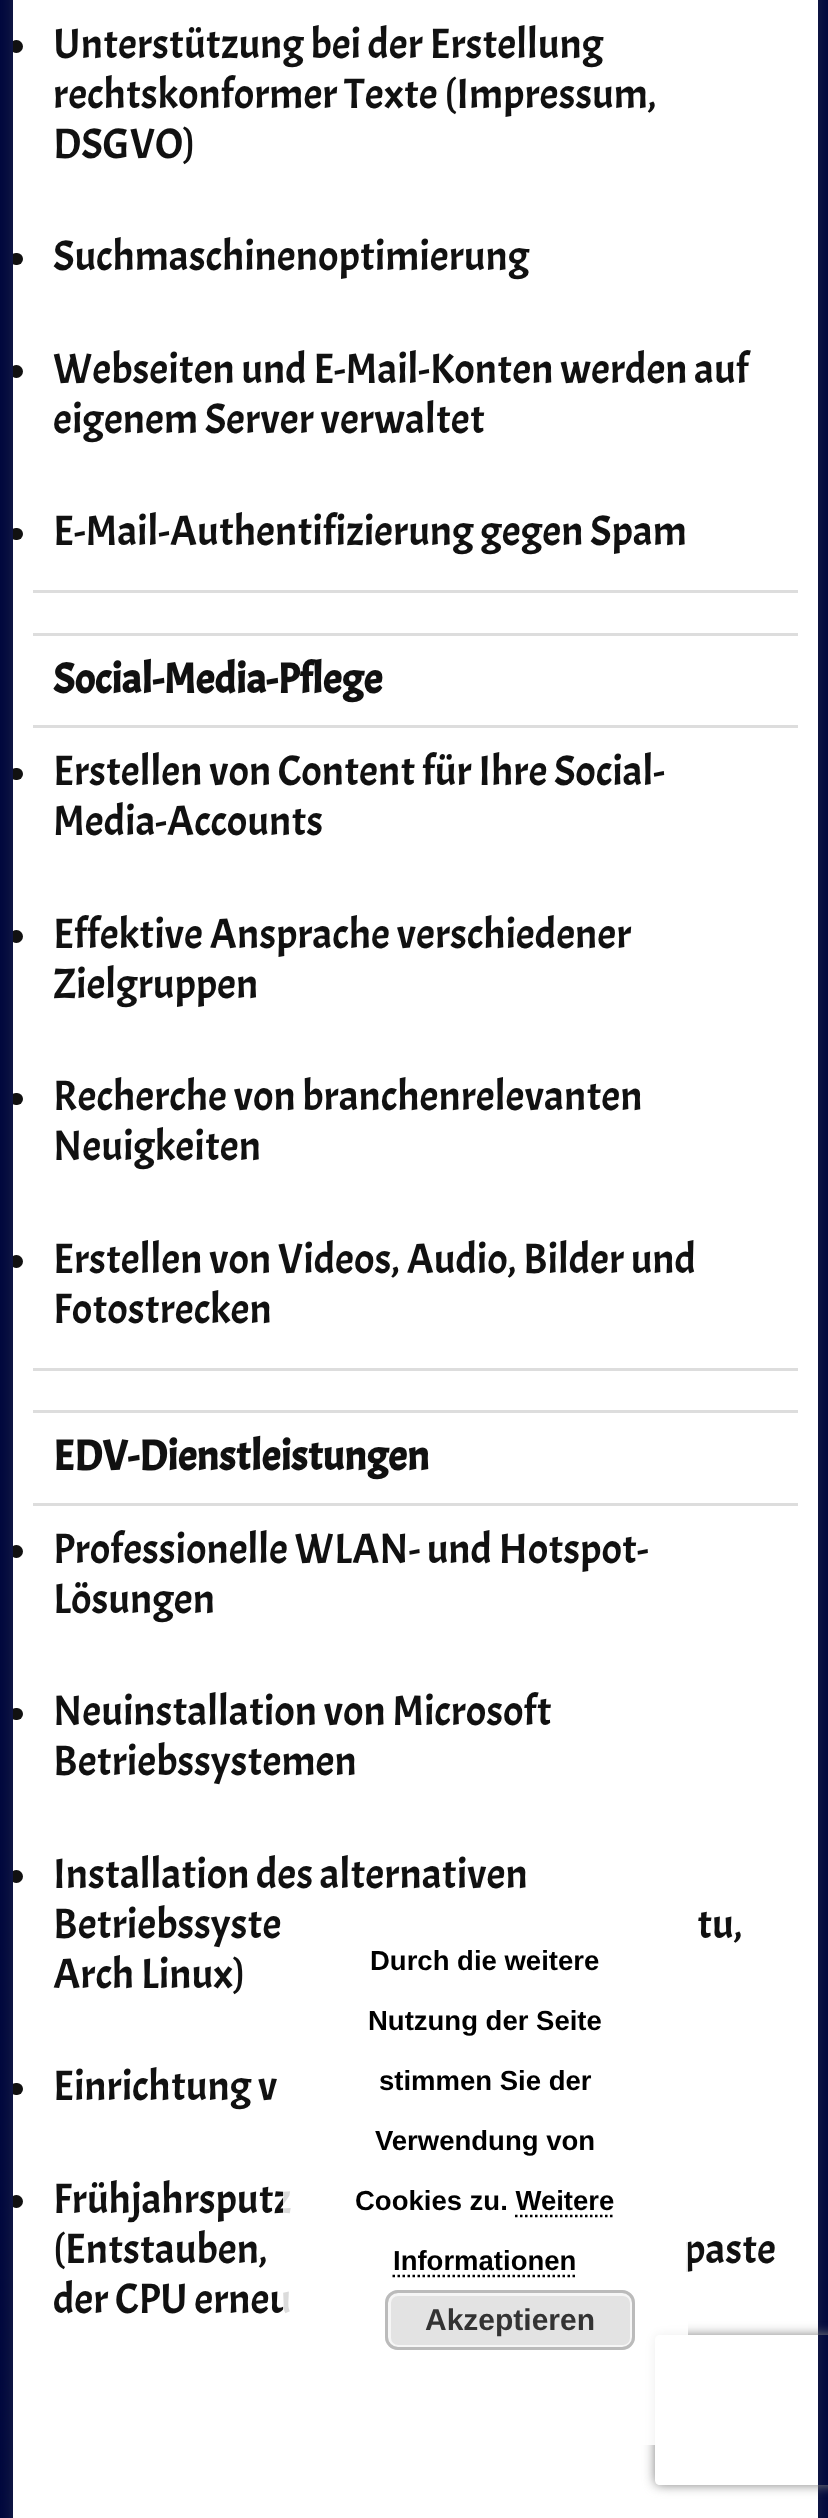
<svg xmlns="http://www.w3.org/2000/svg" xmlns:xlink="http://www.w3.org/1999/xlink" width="828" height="2518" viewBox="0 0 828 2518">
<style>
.cls-1{font:42.5px Acme;fill:#111111}
.cls-2{font:bold 42.5px Acme;fill:#111111}
.cls-3{font:bold 27.5px Liberation Sans;fill:#000000}
.cls-4{font:bold 30px Liberation Sans;fill:#333333}
</style>
<defs>
<clipPath id="clip1"><rect x="13" y="0" width="805" height="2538"/></clipPath>
<clipPath id="clip2"><path d="M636 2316H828V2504H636ZM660 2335H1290C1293 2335 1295 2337 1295 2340V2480C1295 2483 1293 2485 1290 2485H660C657 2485 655 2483 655 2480V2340C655 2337 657 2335 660 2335Z" clip-rule="evenodd"/></clipPath>
</defs>
<rect width="100%" height="100%" fill="#01083d"/>
<rect fill="#646464" fill-opacity="0.3" filter="blur(7.5px)" x="13" y="-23" width="805" height="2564"/>
<rect fill="#ffffff" x="13" y="0" width="805" height="2518"/>
<g clip-path="url(#clip1)">
<circle fill="#111111" cx="16.5" cy="46.5" r="6.5"/>
<rect fill="#111111" x="10" y="253" width="13" height="12" rx="6"/>
<circle fill="#111111" cx="16.5" cy="371.5" r="6.5"/>
<rect fill="#111111" x="10" y="528" width="13" height="12" rx="6"/>
</g>
<rect fill="#dddddd" x="33" y="590" width="765" height="3"/>
<rect fill="#dddddd" x="33" y="633" width="765" height="3"/>
<rect fill="#dddddd" x="33" y="725" width="765" height="3"/>
<g clip-path="url(#clip1)">
<rect fill="#111111" x="10" y="768" width="13" height="12" rx="6"/>
<circle fill="#111111" cx="16.5" cy="936.5" r="6.5"/>
<rect fill="#111111" x="10" y="1093" width="13" height="12" rx="6"/>
<circle fill="#111111" cx="16.5" cy="1261.5" r="6.5"/>
</g>
<rect fill="#dddddd" x="33" y="1368" width="765" height="3"/>
<rect fill="#dddddd" x="33" y="1410" width="765" height="3"/>
<rect fill="#dddddd" x="33" y="1503" width="765" height="3"/>
<g clip-path="url(#clip1)">
<circle fill="#111111" cx="16.5" cy="1551.5" r="6.5"/>
<rect fill="#111111" x="10" y="1708" width="13" height="12" rx="6"/>
<circle fill="#111111" cx="16.5" cy="1876.5" r="6.5"/>
<rect fill="#111111" x="10" y="2083" width="13" height="12" rx="6"/>
<circle fill="#111111" cx="16.5" cy="2201.5" r="6.5"/>
</g>
<g clip-path="url(#clip2)">
<rect fill="#808080" filter="blur(6px)" x="655" y="2335" width="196" height="150" rx="5"/>
</g>
<text class="cls-1"><tspan x="53" y="58">Unterstützung bei der Erstellung</tspan><tspan x="53" y="108">rechtskonformer Texte (Impressum,</tspan><tspan x="53" y="158">DSGVO)</tspan></text>
<text class="cls-1" x="53" y="270">Suchmaschinenoptimierung</text>
<text class="cls-1"><tspan x="53" y="383">Webseiten und E-Mail-Konten werden auf</tspan><tspan x="53" y="433">eigenem Server verwaltet</tspan></text>
<text class="cls-1" x="53" y="545">E-Mail-Authentifizierung gegen Spam</text>
<text class="cls-2" x="53" y="693">Social-Media-Pflege</text>
<text class="cls-1"><tspan x="53" y="785">Erstellen von Content für Ihre Social-</tspan><tspan x="53" y="835">Media-Accounts</tspan></text>
<text class="cls-1"><tspan x="53" y="948">Effektive Ansprache verschiedener</tspan><tspan x="53" y="998">Zielgruppen</tspan></text>
<text class="cls-1"><tspan x="53" y="1110">Recherche von branchenrelevanten</tspan><tspan x="53" y="1160">Neuigkeiten</tspan></text>
<text class="cls-1"><tspan x="53" y="1273">Erstellen von Videos, Audio, Bilder und</tspan><tspan x="53" y="1323">Fotostrecken</tspan></text>
<text class="cls-2" x="53" y="1470">EDV-Dienstleistungen</text>
<text class="cls-1"><tspan x="53" y="1563">Professionelle WLAN- und Hotspot-</tspan><tspan x="53" y="1613">Lösungen</tspan></text>
<text class="cls-1"><tspan x="53" y="1725">Neuinstallation von Microsoft</tspan><tspan x="53" y="1775">Betriebssystemen</tspan></text>
<text class="cls-1"><tspan x="53" y="1888">Installation des alternativen</tspan><tspan x="53" y="1938">Betriebssyste</tspan></text>
<text class="cls-1" x="697" y="1938">tu,</text>
<text class="cls-1" x="53" y="1988">Arch Linux)</text>
<text class="cls-1" x="53" y="2100">Einrichtung v</text>
<text class="cls-1"><tspan x="53" y="2213">Frühjahrsputz</tspan><tspan x="53" y="2263">(Entstauben,</tspan></text>
<text class="cls-1" x="684" y="2263">paste</text>
<text class="cls-1" x="53" y="2313">der CPU erneu</text>
<rect fill="#ffffff" fill-opacity="0.85" x="283" y="1910" width="405" height="535" rx="13"/>
<text class="cls-3" x="370" y="1970">Durch die weitere</text>
<text class="cls-3" x="368" y="2030">Nutzung der Seite</text>
<text class="cls-3" x="379" y="2090">stimmen Sie der</text>
<text class="cls-3" x="375" y="2150">Verwendung von</text>
<text class="cls-3" x="355" y="2210">Cookies zu. Weitere</text>
<text class="cls-3" x="393" y="2270">Informationen</text>
<path fill="none" stroke="#000000" stroke-width="2.5" stroke-dasharray="2.5 2.5" d="M515 2216H615"/>
<path fill="none" stroke="#000000" stroke-width="2.5" stroke-dasharray="2.5 2.5" d="M392.5 2276H577.5"/>
<rect fill="#e3e3e3" x="385" y="2290" width="250" height="60" rx="13"/>
<rect fill="none" stroke="#f6f6f6" stroke-width="3" x="389.5" y="2294.5" width="242" height="52" rx="8.5"/>
<rect fill="none" stroke="#bbbbbb" stroke-width="3" x="386.5" y="2291.5" width="247" height="57" rx="11.5"/>
<text class="cls-4" x="425" y="2330">Akzeptieren</text>
</svg>
